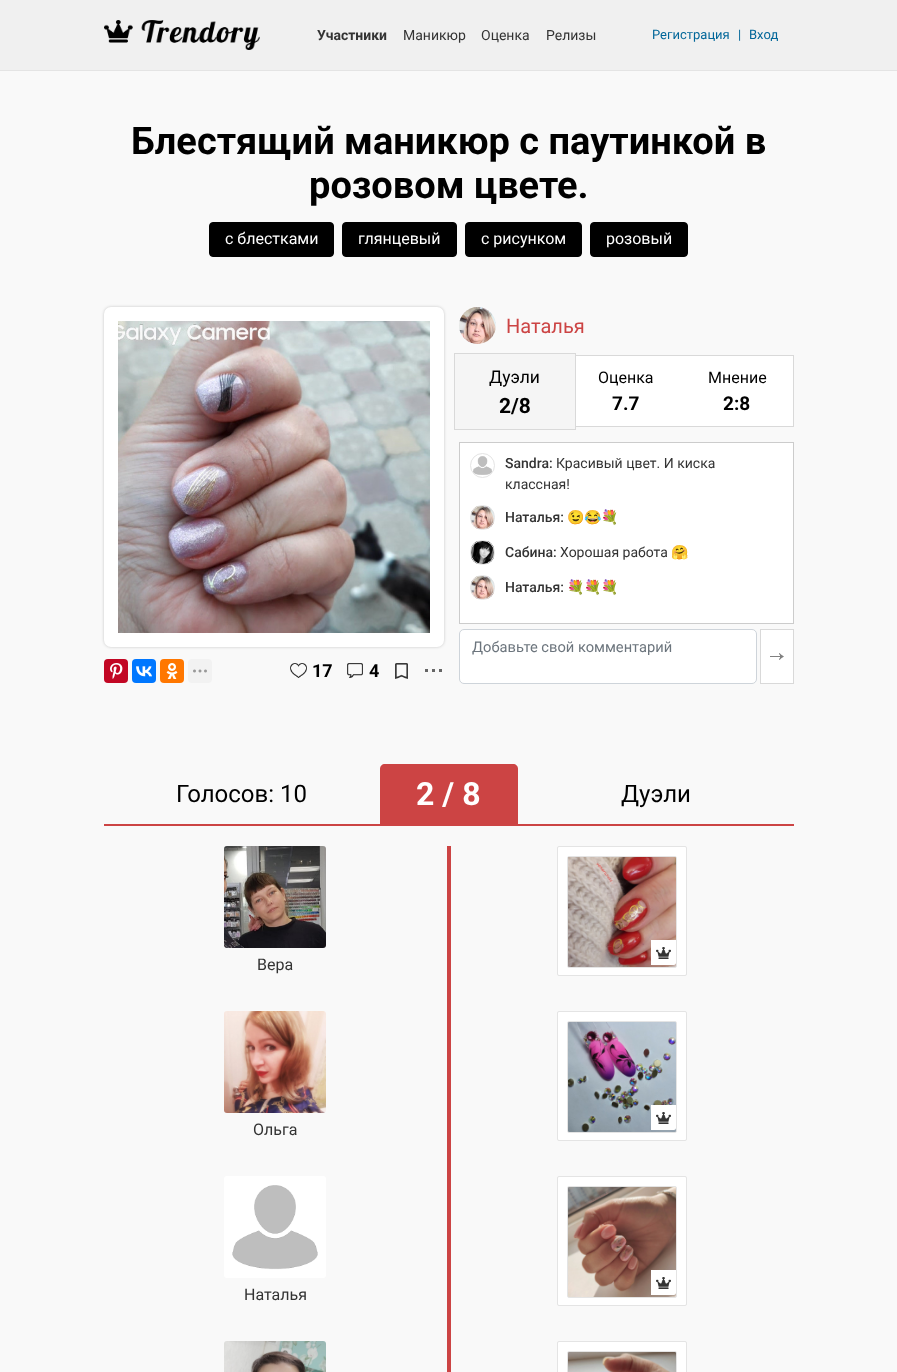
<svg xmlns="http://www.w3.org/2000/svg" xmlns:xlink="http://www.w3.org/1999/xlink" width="897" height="1372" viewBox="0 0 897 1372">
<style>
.cls-1{font:bold 14px Roboto;fill:#333333}
.cls-2{font:14px Roboto;fill:#333333}
.cls-3{font:13px Roboto;fill:#006699}
.cls-4{font:bold 38px Roboto;fill:#000000}
.cls-5{font:16px Roboto;fill:#ffffff}
.cls-6{font:20px Roboto;fill:#cc4444}
.cls-7{font:17.5px Roboto;fill:#000000}
.cls-8{font:bold 21px Roboto;fill:#000000}
.cls-9{font:16px Roboto;fill:#000000}
.cls-10{font:bold 19px Roboto;fill:#000000}
.cls-11{font:500 14px Roboto;fill:#333333}
.cls-12{font:14px Noto Color Emoji;fill:#333333}
.cls-13{font:14.7px Roboto;fill:#6c757d}
.cls-14{font:bold 18px Roboto;fill:#000000}
.cls-15{font:24px Roboto;fill:#000000}
.cls-16{font:bold 32px Roboto;fill:#ffffff}
.cls-17{font:16px Roboto;fill:#333333}
</style>
<rect width="100%" height="100%" fill="#f9f9f9"/>
<rect fill="#f0f0f0" x="0" y="0" width="897" height="70"/>
<rect fill="#e4e4e4" x="0" y="70" width="897" height="1"/>
<image xlink:href="image0.png" x="104" y="20" width="156" height="30"/>
<rect fill="#000000" stroke="#000000" x="209.5" y="222.5" width="124" height="34" rx="3.5"/>
<rect fill="#000000" stroke="#000000" x="342.5" y="222.5" width="114" height="34" rx="3.5"/>
<rect fill="#000000" stroke="#000000" x="465.5" y="222.5" width="116" height="34" rx="3.5"/>
<rect fill="#000000" stroke="#000000" x="590.5" y="222.5" width="97" height="34" rx="3.5"/>
<image xlink:href="image1.png" x="459" y="307" width="37" height="37"/>
<rect fill="#ffffff" x="576" y="356" width="217" height="70"/>
<rect fill="none" stroke="#d9d9d9" x="459.5" y="355.5" width="334" height="71"/>
<rect fill="#f5f5f5" stroke="#d9d9d9" x="454.5" y="353.5" width="121" height="76"/>
<rect fill="#ffffff" stroke="#cccccc" x="459.5" y="442.5" width="334" height="181"/>
<image xlink:href="image2.png" x="473" y="456" width="19" height="19"/>
<circle fill="none" stroke="#e4e4e4" cx="482.5" cy="465.5" r="12"/>
<image xlink:href="image3.png" x="471" y="506" width="23" height="23"/>
<circle fill="none" stroke="#e4e4e4" cx="482.5" cy="517.5" r="12"/>
<image xlink:href="image4.png" x="471" y="541" width="23" height="23"/>
<circle fill="none" stroke="#e4e4e4" cx="482.5" cy="552.5" r="12"/>
<image xlink:href="image5.png" x="471" y="576" width="23" height="23"/>
<circle fill="none" stroke="#e4e4e4" cx="482.5" cy="587.5" r="12"/>
<rect fill="#ffffff" stroke="#ced4da" x="459.5" y="629.5" width="297" height="54" rx="4.5"/>
<rect fill="#ffffff" x="761" y="630" width="32" height="53"/>
<image xlink:href="image6.png" x="770" y="653" width="14" height="7"/>
<rect fill="none" stroke="#d9d9d9" x="760.5" y="629.5" width="33" height="54"/>
<rect fill="#000000" fill-opacity="0.2" filter="blur(1.5px)" x="104" y="307" width="340" height="340" rx="7"/>
<rect fill="#ffffff" x="104" y="307" width="340" height="340" rx="7"/>
<image xlink:href="image7.png" x="118" y="321" width="312" height="312"/>
<rect fill="#c20724" x="104" y="659" width="24" height="24" rx="4"/>
<image xlink:href="image8.png" x="110" y="663" width="13" height="16"/>
<rect fill="#0077ff" x="132" y="659" width="24" height="24" rx="4"/>
<image xlink:href="image9.png" x="136" y="666" width="16" height="11"/>
<rect fill="#ff7700" x="160" y="659" width="24" height="24" rx="4"/>
<image xlink:href="image10.png" x="166" y="663" width="12" height="16"/>
<rect fill="#f2f2f2" x="188" y="659" width="24" height="24" rx="4"/>
<image xlink:href="image11.png" x="193" y="669" width="14" height="4"/>
<image xlink:href="image12.png" x="290" y="663" width="17" height="15"/>
<image xlink:href="image13.png" x="347" y="663" width="16" height="15"/>
<image xlink:href="image14.png" x="395" y="663" width="13" height="16"/>
<rect fill="#666666" x="425" y="669" width="3" height="3"/>
<rect fill="#666666" x="432" y="669" width="3" height="3"/>
<rect fill="#666666" x="439" y="669" width="3" height="3"/>
<rect fill="#cc4444" x="104" y="824" width="690" height="2"/>
<path fill="#cc4444" d="M385 764H513C516 764 518 766 518 769V824H380V769C380 766 382 764 385 764Z"/>
<rect fill="#cc4444" x="447" y="846" width="4" height="165"/>
<image xlink:href="image15.png" x="224" y="846" width="102" height="102"/>
<rect fill="#ffffff" stroke="#e4e4e4" x="557.5" y="846.5" width="129" height="129" rx="1.5"/>
<image xlink:href="image16.png" x="568" y="857" width="108" height="110"/>
<rect fill="none" stroke="#e4e4e4" x="567.5" y="856.5" width="109" height="111" rx="1.5"/>
<path fill="#ffffff" d="M651 940H676V963C676 964 675 965 674 965H651Z"/>
<image xlink:href="image17.png" x="656" y="947" width="15" height="12"/>
<rect fill="#cc4444" x="447" y="1011" width="4" height="165"/>
<image xlink:href="image18.png" x="224" y="1011" width="102" height="102"/>
<rect fill="#ffffff" stroke="#e4e4e4" x="557.5" y="1011.5" width="129" height="129" rx="1.5"/>
<image xlink:href="image19.png" x="568" y="1022" width="108" height="110"/>
<rect fill="none" stroke="#e4e4e4" x="567.5" y="1021.5" width="109" height="111" rx="1.5"/>
<path fill="#ffffff" d="M651 1105H676V1128C676 1129 675 1130 674 1130H651Z"/>
<image xlink:href="image17.png" x="656" y="1112" width="15" height="12"/>
<rect fill="#cc4444" x="447" y="1176" width="4" height="165"/>
<image xlink:href="image20.png" x="224" y="1176" width="102" height="102"/>
<rect fill="#ffffff" stroke="#e4e4e4" x="557.5" y="1176.5" width="129" height="129" rx="1.5"/>
<image xlink:href="image21.png" x="568" y="1187" width="108" height="110"/>
<rect fill="none" stroke="#e4e4e4" x="567.5" y="1186.5" width="109" height="111" rx="1.5"/>
<path fill="#ffffff" d="M651 1270H676V1293C676 1294 675 1295 674 1295H651Z"/>
<image xlink:href="image17.png" x="656" y="1277" width="15" height="12"/>
<rect fill="#cc4444" x="447" y="1341" width="4" height="31"/>
<image xlink:href="image22.png" x="224" y="1341" width="102" height="31"/>
<rect fill="#ffffff" stroke="#e4e4e4" x="557.5" y="1341.5" width="129" height="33" rx="1.5"/>
<image xlink:href="image23.png" x="568" y="1352" width="108" height="20"/>
<rect fill="none" stroke="#e4e4e4" x="567.5" y="1351.5" width="109" height="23" rx="1.5"/>
<text class="cls-1" x="317" y="40">Участники</text>
<text class="cls-2" x="403" y="40">Маникюр</text>
<text class="cls-2" x="481" y="40">Оценка</text>
<text class="cls-2" x="546" y="40">Релизы</text>
<text class="cls-3" x="652" y="39">Регистрация</text>
<text class="cls-3" x="738" y="39">|</text>
<text class="cls-3" x="749" y="39">Вход</text>
<text class="cls-4" x="131" y="154">Блестящий маникюр с паутинкой в</text>
<text class="cls-4" x="309" y="198">розовом цвете.</text>
<text class="cls-5" x="225" y="244">с блестками</text>
<text class="cls-5" x="358" y="244">глянцевый</text>
<text class="cls-5" x="481" y="244">с рисунком</text>
<text class="cls-5" x="606" y="244">розовый</text>
<text class="cls-6" x="506" y="333">Наталья</text>
<text class="cls-7" x="489" y="383">Дуэли</text>
<text class="cls-8" x="499" y="413">2/8</text>
<text class="cls-9" x="598" y="383">Оценка</text>
<text class="cls-10" x="612" y="410">7.7</text>
<text class="cls-9" x="708" y="383">Мнение</text>
<text class="cls-10" x="723" y="410">2:8</text>
<text class="cls-11" x="505" y="468">Sandra:</text>
<text class="cls-2" x="556" y="468">Красивый цвет. И киска</text>
<text class="cls-2" x="505" y="489">классная!</text>
<text class="cls-11" x="505" y="522">Наталья:</text>
<text class="cls-12" x="567" y="522">😉😂💐</text>
<text class="cls-11" x="505" y="557">Сабина:</text>
<text class="cls-2" x="560" y="557">Хорошая работа</text>
<text class="cls-12" x="671" y="557">🤗</text>
<text class="cls-11" x="505" y="592">Наталья:</text>
<text class="cls-12" x="567" y="592">💐💐💐</text>
<text class="cls-13" x="472" y="652">Добавьте свой комментарий</text>
<text class="cls-14" x="312" y="677">17</text>
<text class="cls-14" x="369" y="677">4</text>
<text class="cls-15" x="176" y="802">Голосов: 10</text>
<text class="cls-16" x="416" y="805">2 / 8</text>
<text class="cls-15" x="621" y="802">Дуэли</text>
<text class="cls-17" x="257" y="970">Вера</text>
<text class="cls-17" x="253" y="1135">Ольга</text>
<text class="cls-17" x="244" y="1300">Наталья</text>
</svg>
